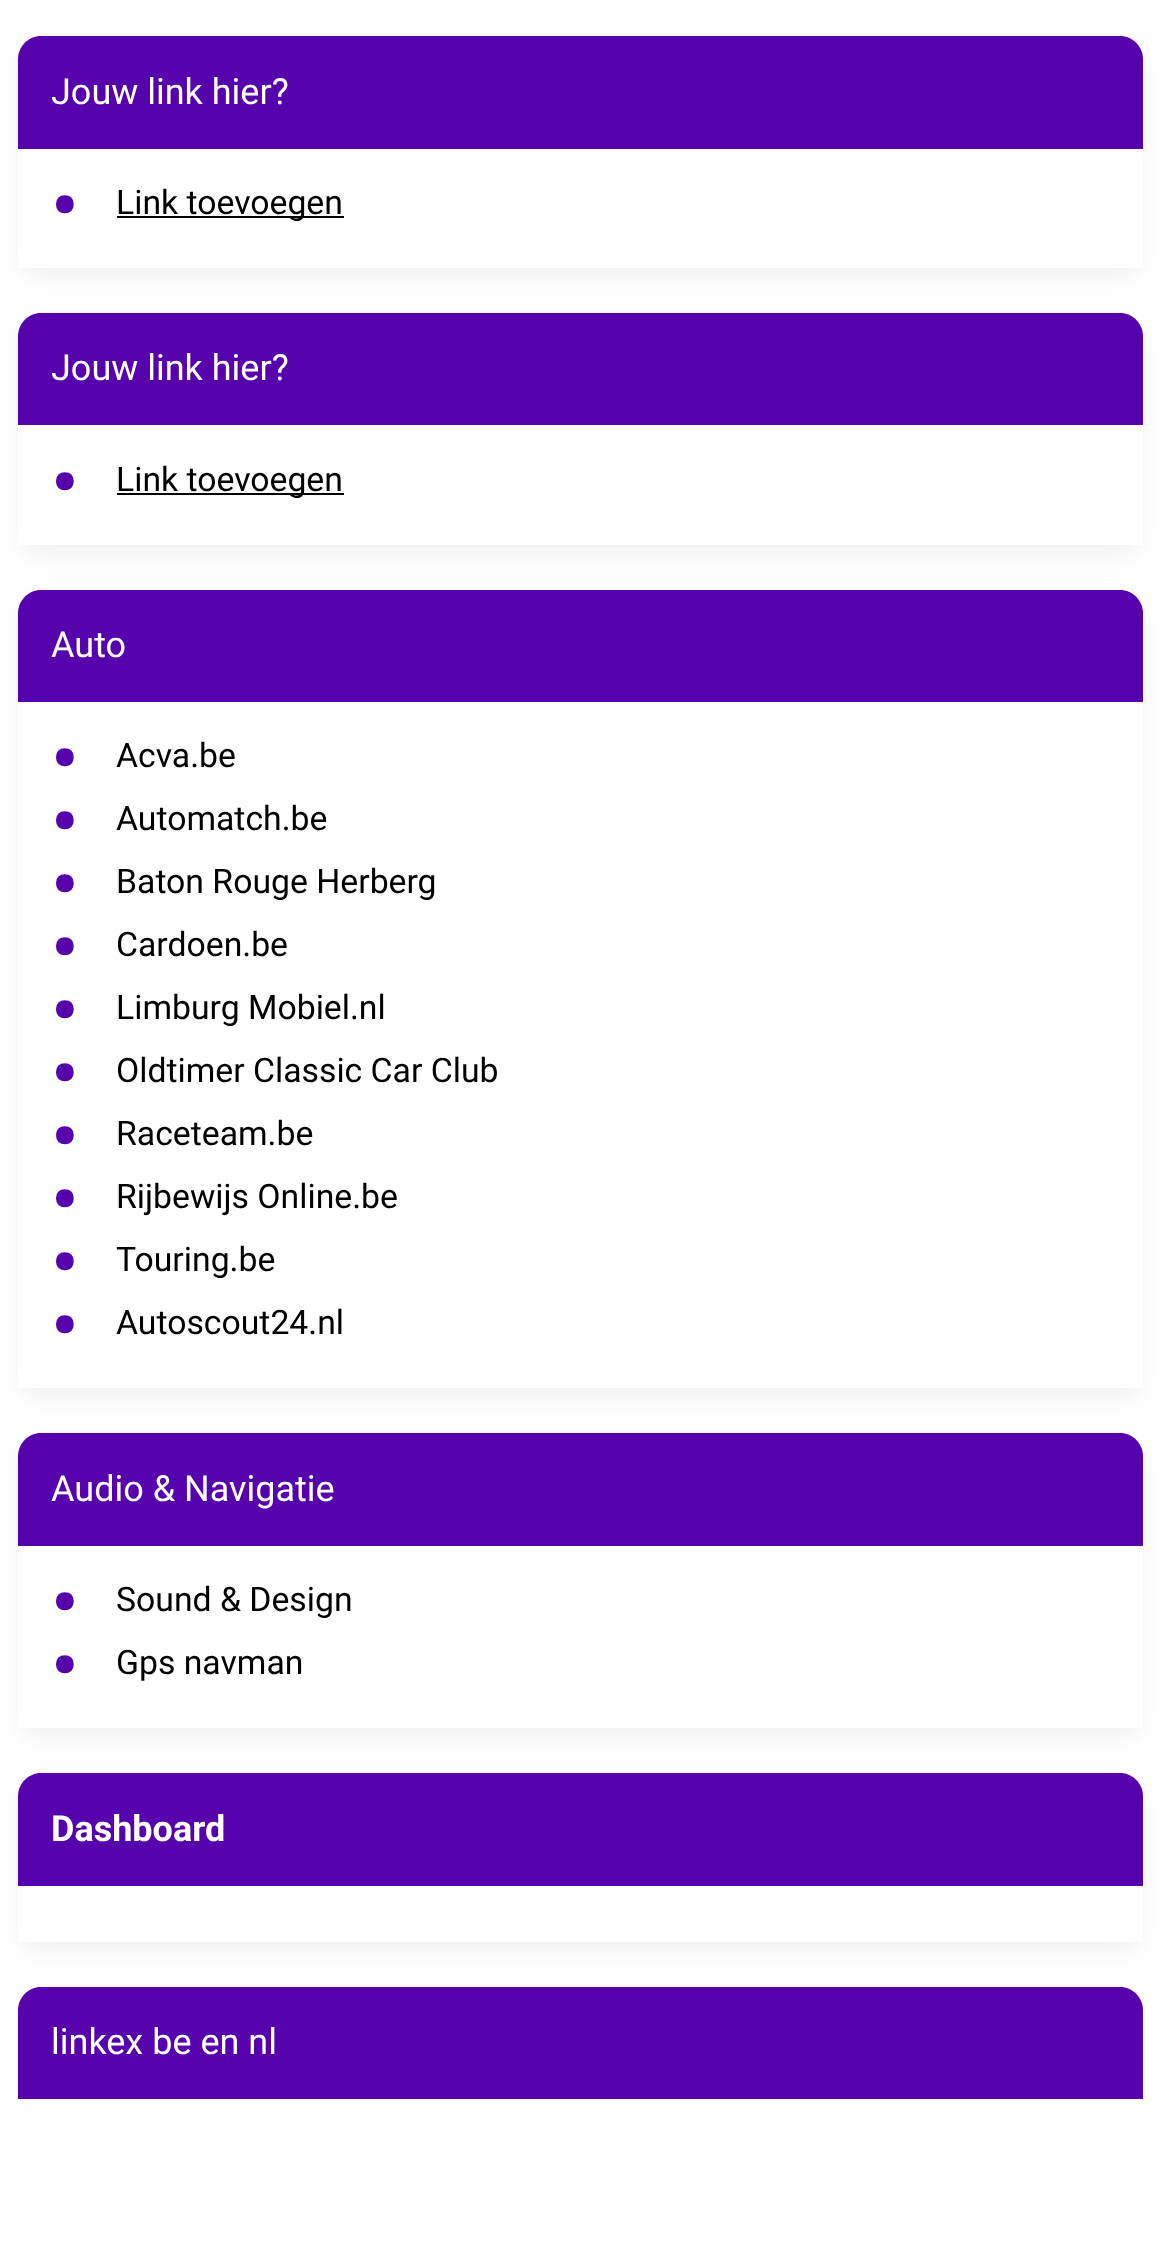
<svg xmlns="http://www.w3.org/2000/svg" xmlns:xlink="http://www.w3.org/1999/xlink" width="1157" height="2244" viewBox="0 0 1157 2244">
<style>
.cls-1{font:36px Roboto;fill:#ffffff}
.cls-2{font:bold 76px Roboto;fill:#5603ad}
.cls-3{font:33.75px Roboto;fill:#000000}
.cls-4{font:bold 36px Roboto;fill:#ffffff}
</style>
<defs>
<clipPath id="clip1"><path d="M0 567H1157V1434H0ZM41 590H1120C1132.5 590 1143 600.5 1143 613V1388H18V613C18 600.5 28.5 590 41 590Z" clip-rule="evenodd"/></clipPath>
<clipPath id="clip2"><path d="M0 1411H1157V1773H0ZM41 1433H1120C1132.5 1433 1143 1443.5 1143 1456V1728H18V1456C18 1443.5 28.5 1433 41 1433Z" clip-rule="evenodd"/></clipPath>
</defs>
<rect width="100%" height="100%" fill="#ffffff"/>
<rect fill="#000000" fill-opacity="0.05" filter="blur(11px)" x="18" y="47" width="1125" height="232" rx="23"/>
<path fill="#ffffff" d="M41 36H1120C1132.5 36 1143 46.5 1143 59V268H18V59C18 46.5 28.5 36 41 36Z"/>
<path fill="#5603ad" d="M41 36H1120C1132.5 36 1143 46.5 1143 59V149H18V59C18 46.5 28.5 36 41 36Z"/>
<rect fill="#000000" x="117" y="216" width="227" height="2"/>
<rect fill="#000000" fill-opacity="0.05" filter="blur(11px)" x="18" y="324" width="1125" height="232" rx="23"/>
<path fill="#ffffff" d="M41 313H1120C1132.5 313 1143 323.5 1143 336V545H18V336C18 323.5 28.5 313 41 313Z"/>
<path fill="#5603ad" d="M41 313H1120C1132.5 313 1143 323.5 1143 336V425H18V336C18 323.5 28.5 313 41 313Z"/>
<rect fill="#000000" x="117" y="493" width="227" height="2"/>
<g clip-path="url(#clip1)">
<rect fill="#000000" fill-opacity="0.05" filter="blur(11px)" x="18" y="601" width="1125" height="799" rx="23"/>
</g>
<path fill="#5603ad" d="M41 590H1120C1132.5 590 1143 600.5 1143 613V702H18V613C18 600.5 28.5 590 41 590Z"/>
<g clip-path="url(#clip2)">
<rect fill="#000000" fill-opacity="0.05" filter="blur(11px)" x="18" y="1445" width="1125" height="294" rx="23"/>
</g>
<path fill="#5603ad" d="M41 1433H1120C1132.5 1433 1143 1443.5 1143 1456V1546H18V1456C18 1443.5 28.5 1433 41 1433Z"/>
<rect fill="#000000" fill-opacity="0.05" filter="blur(11px)" x="18" y="1784" width="1125" height="169" rx="23"/>
<path fill="#ffffff" d="M41 1773H1120C1132.5 1773 1143 1783.5 1143 1796V1942H18V1796C18 1783.5 28.5 1773 41 1773Z"/>
<path fill="#5603ad" d="M41 1773H1120C1132.5 1773 1143 1783.5 1143 1796V1886H18V1796C18 1783.5 28.5 1773 41 1773Z"/>
<path fill="#5603ad" d="M41 1987H1120C1132.5 1987 1143 1997.5 1143 2010V2099H18V2010C18 1997.5 28.5 1987 41 1987Z"/>
<text class="cls-1" x="51" y="104">Jouw link hier?</text>
<text class="cls-2" x="51" y="232">•</text>
<text class="cls-3" x="116" y="214">Link toevoegen</text>
<text class="cls-1" x="51" y="380">Jouw link hier?</text>
<text class="cls-2" x="51" y="509">•</text>
<text class="cls-3" x="116" y="491">Link toevoegen</text>
<text class="cls-1" x="51" y="657">Auto</text>
<text class="cls-2" x="51" y="785">•</text>
<text class="cls-3" x="116" y="767">Acva.be</text>
<text class="cls-2" x="51" y="848">•</text>
<text class="cls-3" x="116" y="830">Automatch.be</text>
<text class="cls-2" x="51" y="911">•</text>
<text class="cls-3" x="116" y="893">Baton Rouge Herberg</text>
<text class="cls-2" x="51" y="974">•</text>
<text class="cls-3" x="116" y="956">Cardoen.be</text>
<text class="cls-2" x="51" y="1037">•</text>
<text class="cls-3" x="116" y="1019">Limburg Mobiel.nl</text>
<text class="cls-2" x="51" y="1100">•</text>
<text class="cls-3" x="116" y="1082">Oldtimer Classic Car Club</text>
<text class="cls-2" x="51" y="1163">•</text>
<text class="cls-3" x="116" y="1145">Raceteam.be</text>
<text class="cls-2" x="51" y="1226">•</text>
<text class="cls-3" x="116" y="1208">Rijbewijs Online.be</text>
<text class="cls-2" x="51" y="1289">•</text>
<text class="cls-3" x="116" y="1271">Touring.be</text>
<text class="cls-2" x="51" y="1352">•</text>
<text class="cls-3" x="116" y="1334">Autoscout24.nl</text>
<text class="cls-1" x="51" y="1501">Audio &amp; Navigatie</text>
<text class="cls-2" x="51" y="1629">•</text>
<text class="cls-3" x="116" y="1611">Sound &amp; Design</text>
<text class="cls-2" x="51" y="1692">•</text>
<text class="cls-3" x="116" y="1674">Gps navman</text>
<text class="cls-4" x="51" y="1841">Dashboard</text>
<text class="cls-1" x="51" y="2054">linkex be en nl</text>
</svg>
